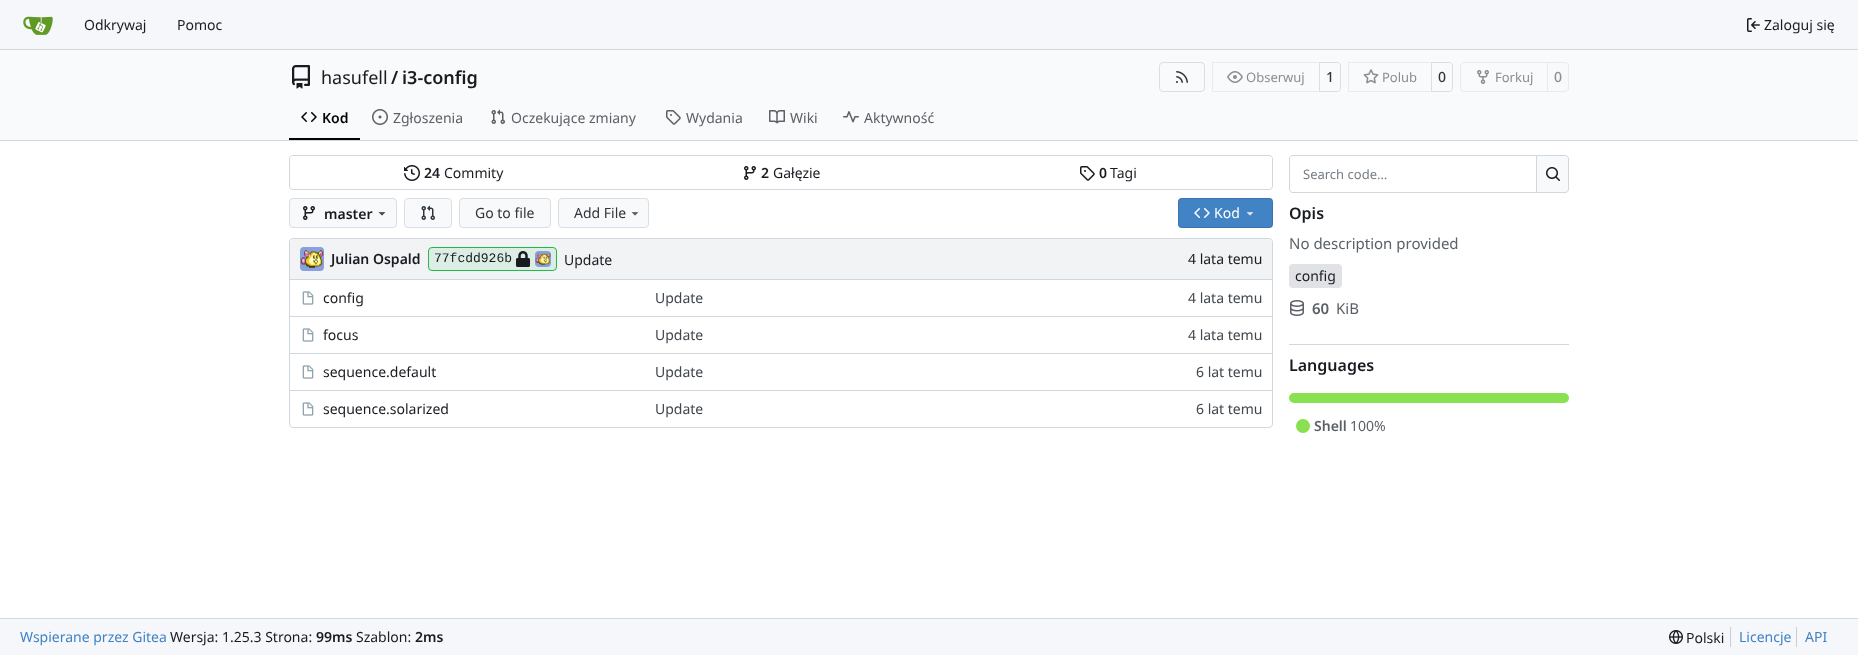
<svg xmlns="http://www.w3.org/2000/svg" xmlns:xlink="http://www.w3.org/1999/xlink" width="1858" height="655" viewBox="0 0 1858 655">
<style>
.cls-1{font:14px Noto Sans;fill:#181c21}
.cls-2{font:18px Noto Sans;fill:#181c21}
.cls-3{font:600 18px Noto Sans;fill:#181c21}
.cls-4{font:13px Noto Sans;fill:#8a8e91}
.cls-5{font:500 14px Noto Sans;fill:#30363b}
.cls-6{font:500 14px Noto Sans;fill:#8a8e91}
.cls-7{font:600 14px Noto Sans;fill:#01050a}
.cls-8{font:14px Noto Sans;fill:#5b6167}
.cls-9{font:600 14px Noto Sans;fill:#181c21}
.cls-10{font:14px Noto Sans;fill:#30363b}
.cls-11{font:14px Noto Sans;fill:#ffffff}
.cls-12{font:13px Liberation Mono;fill:#181c21}
.cls-13{font:14px Noto Sans;fill:#40474d}
.cls-14{font:13px Noto Sans;fill:#747c84}
.cls-15{font:600 16px Noto Sans;fill:#181c21}
.cls-16{font:15px Noto Sans;fill:#5b6167}
.cls-17{font:600 15px Noto Sans;fill:#5b6167}
.cls-18{font:600 14px Noto Sans;fill:#5b6167}
.cls-19{font:14px Noto Sans;fill:#4183c4}
</style>
<rect width="100%" height="100%" fill="#ffffff"/>
<rect fill="#f6f7fa" x="0" y="0" width="1858" height="49"/>
<rect fill="#d0d7de" x="0" y="49" width="1858" height="1"/>
<image xlink:href="image0.png" x="23" y="16" width="30" height="19"/>
<image xlink:href="image1.png" x="1747" y="18" width="13" height="14"/>
<rect fill="#f9fafb" x="0" y="50" width="1858" height="90"/>
<image xlink:href="image2.png" x="292" y="65" width="18" height="24"/>
<rect fill="none" stroke="#dddee1" x="1159.5" y="62.5" width="45" height="29" rx="3.5"/>
<image xlink:href="image3.png" x="1176" y="71" width="12" height="12"/>
<path fill="none" stroke="#dddee1" d="M1319.5 62.5H1337C1339 62.5 1340.5 64 1340.5 66V88C1340.5 90 1339 91.5 1337 91.5H1319.5Z"/>
<path fill="#f8f9fb" fill-opacity="0.55" d="M1216 62H1320V92H1216C1214 92 1212 90 1212 88V66C1212 64 1214 62 1216 62Z"/>
<rect fill="none" stroke="#000017" stroke-opacity="0.06" x="1212.5" y="62.5" width="107" height="29"/>
<image xlink:href="image4.png" x="1227" y="71" width="16" height="12"/>
<path fill="none" stroke="#dddee1" d="M1431.5 62.5H1449C1451 62.5 1452.5 64 1452.5 66V88C1452.5 90 1451 91.5 1449 91.5H1431.5Z"/>
<path fill="#f8f9fb" fill-opacity="0.55" d="M1352 62H1432V92H1352C1350 92 1348 90 1348 88V66C1348 64 1350 62 1352 62Z"/>
<rect fill="none" stroke="#000017" stroke-opacity="0.06" x="1348.5" y="62.5" width="83" height="29"/>
<image xlink:href="image5.png" x="1363" y="69" width="16" height="15"/>
<path fill="none" stroke="#e9eaed" d="M1464 62.5H1547.5V91.5H1464C1462 91.5 1460.5 90 1460.5 88V66C1460.5 64 1462 62.5 1464 62.5Z"/>
<image xlink:href="image6.png" x="1477" y="70" width="12" height="14"/>
<path fill="#f8f9fb" stroke="#e9eaed" d="M1547.5 62.5H1565C1567 62.5 1568.5 64 1568.5 66V88C1568.5 90 1567 91.5 1565 91.5H1547.5Z"/>
<rect fill="#01050a" x="289" y="138" width="71" height="2"/>
<image xlink:href="image7.png" x="301" y="112" width="16" height="10"/>
<image xlink:href="image8.png" x="372" y="109" width="16" height="16"/>
<image xlink:href="image9.png" x="491" y="109" width="14" height="15"/>
<image xlink:href="image10.png" x="666" y="110" width="15" height="15"/>
<image xlink:href="image11.png" x="769" y="110" width="16" height="14"/>
<image xlink:href="image12.png" x="843" y="111" width="16" height="12"/>
<rect fill="#d0d7de" x="0" y="140" width="1858" height="1"/>
<rect fill="none" stroke="#d0d7de" x="289.5" y="155.5" width="983" height="34" rx="3.5"/>
<rect fill="#ffffff" x="290" y="156" width="982" height="33" rx="4"/>
<image xlink:href="image13.png" x="404" y="165" width="16" height="16"/>
<image xlink:href="image14.png" x="744" y="166" width="12" height="14"/>
<image xlink:href="image15.png" x="1080" y="166" width="15" height="15"/>
<rect fill="#f8f9fb" stroke="#dcdde1" x="289.5" y="198.5" width="107" height="29" rx="3.5"/>
<image xlink:href="image16.png" x="303" y="206" width="12" height="14"/>
<image xlink:href="image17.png" x="378" y="212" width="8" height="4"/>
<rect fill="#f8f9fb" stroke="#dcdde1" x="404.5" y="198.5" width="47" height="29" rx="3.5"/>
<image xlink:href="image18.png" x="421" y="205" width="14" height="15"/>
<rect fill="#f8f9fb" stroke="#dcdde1" x="459.5" y="198.5" width="91" height="29" rx="3.5"/>
<rect fill="#f8f9fb" stroke="#dcdde1" x="558.5" y="198.5" width="90" height="29" rx="3.5"/>
<image xlink:href="image19.png" x="631" y="212" width="8" height="4"/>
<rect fill="#4183c4" x="1178" y="198" width="95" height="30" rx="4"/>
<rect fill="none" stroke="#000017" stroke-opacity="0.11" x="1178.5" y="198.5" width="94" height="29" rx="3.5"/>
<image xlink:href="image20.png" x="1194" y="208" width="16" height="10"/>
<image xlink:href="image21.png" x="1246" y="212" width="8" height="4"/>
<rect fill="none" stroke="#d0d7de" x="289.5" y="238.5" width="983" height="189" rx="3.5"/>
<path fill="#f1f3f5" d="M294 239H1268C1270 239 1272 241 1272 243V279H290V243C290 241 292 239 294 239Z"/>
<image xlink:href="image22.png" x="300" y="247" width="24" height="24"/>
<rect fill="#dcede3" stroke="#21ba45" x="428.5" y="247.5" width="128" height="23" rx="3.5"/>
<image xlink:href="image23.png" x="516" y="251" width="14" height="16"/>
<image xlink:href="image24.png" x="535" y="251" width="16" height="16"/>
<rect fill="#d0d7de" x="290" y="279" width="888" height="1"/>
<image xlink:href="image25.png" x="302" y="291" width="12" height="14"/>
<rect fill="#d0d7de" x="1178" y="279" width="94" height="1"/>
<rect fill="#d0d7de" x="290" y="316" width="888" height="1"/>
<image xlink:href="image25.png" x="302" y="328" width="12" height="14"/>
<rect fill="#d0d7de" x="1178" y="316" width="94" height="1"/>
<rect fill="#d0d7de" x="290" y="353" width="888" height="1"/>
<image xlink:href="image25.png" x="302" y="365" width="12" height="14"/>
<rect fill="#d0d7de" x="1178" y="353" width="94" height="1"/>
<rect fill="#d0d7de" x="290" y="390" width="888" height="1"/>
<image xlink:href="image25.png" x="302" y="402" width="12" height="14"/>
<rect fill="#d0d7de" x="1178" y="390" width="94" height="1"/>
<path fill="#d0d7de" fill-rule="evenodd" d="M1293 155H1536V193H1293C1291 193 1289 191 1289 189V159C1289 157 1291 155 1293 155ZM1293 156H1536V192H1293C1291 192 1290 191 1290 189V159C1290 157 1291 156 1293 156Z"/>
<path fill="#f8f9fb" stroke="#d0d7de" d="M1536.5 155.5H1565C1567 155.5 1568.5 157 1568.5 159V189C1568.5 191 1567 192.5 1565 192.5H1536.5Z"/>
<image xlink:href="image26.png" x="1546" y="167" width="14" height="14"/>
<rect fill="#e0e2e5" x="1289" y="264" width="53" height="24" rx="4"/>
<image xlink:href="image27.png" x="1290" y="300" width="14" height="16"/>
<rect fill="#d0d7de" x="1289" y="344" width="280" height="1"/>
<rect fill="#89e051" x="1289" y="393" width="280" height="10" rx="5"/>
<circle fill="#89e051" cx="1303" cy="426" r="7"/>
<rect fill="#f6f7fa" x="0" y="619" width="1858" height="36"/>
<rect fill="#d0d7de" x="0" y="618" width="1858" height="1"/>
<image xlink:href="image28.png" x="1669" y="630" width="14" height="14"/>
<rect fill="#c7ced5" x="1730" y="627" width="1" height="20"/>
<rect fill="#c7ced5" x="1796" y="627" width="1" height="20"/>
<text class="cls-1" x="84" y="30">Odkrywaj</text>
<text class="cls-1" x="177" y="30">Pomoc</text>
<text class="cls-1" x="1764" y="30">Zaloguj się</text>
<text class="cls-2" x="321" y="84">hasufell</text>
<text class="cls-3" x="391" y="84">/</text>
<text class="cls-3" x="402" y="84">i3-config</text>
<text class="cls-4" x="1246" y="82">Obserwuj</text>
<text class="cls-5" x="1326" y="82">1</text>
<text class="cls-4" x="1382" y="82">Polub</text>
<text class="cls-5" x="1438" y="82">0</text>
<text class="cls-4" x="1495" y="82">Forkuj</text>
<text class="cls-6" x="1554" y="82">0</text>
<text class="cls-7" x="322" y="123">Kod</text>
<text class="cls-8" x="393" y="123">Zgłoszenia</text>
<text class="cls-8" x="511" y="123">Oczekujące zmiany</text>
<text class="cls-8" x="686" y="123">Wydania</text>
<text class="cls-8" x="790" y="123">Wiki</text>
<text class="cls-8" x="864" y="123">Aktywność</text>
<text class="cls-9" x="424" y="178">24</text>
<text class="cls-1" x="444" y="178">Commity</text>
<text class="cls-9" x="761" y="178">2</text>
<text class="cls-1" x="773" y="178">Gałęzie</text>
<text class="cls-9" x="1099" y="178">0</text>
<text class="cls-1" x="1110" y="178">Tagi</text>
<text class="cls-9" x="324" y="219">master</text>
<text class="cls-10" x="475" y="218">Go to file</text>
<text class="cls-10" x="574" y="218">Add File</text>
<text class="cls-11" x="1214" y="218">Kod</text>
<text class="cls-9" x="331" y="264">Julian Ospald</text>
<text class="cls-12" x="434" y="262">77fcdd926b</text>
<text class="cls-1" x="564" y="265">Update</text>
<text class="cls-1" x="1188" y="264">4 lata temu</text>
<text class="cls-1" x="323" y="303">config</text>
<text class="cls-13" x="655" y="303">Update</text>
<text class="cls-13" x="1188" y="303">4 lata temu</text>
<text class="cls-1" x="323" y="340">focus</text>
<text class="cls-13" x="655" y="340">Update</text>
<text class="cls-13" x="1188" y="340">4 lata temu</text>
<text class="cls-1" x="323" y="377">sequence.default</text>
<text class="cls-13" x="655" y="377">Update</text>
<text class="cls-13" x="1196" y="377">6 lat temu</text>
<text class="cls-1" x="323" y="414">sequence.solarized</text>
<text class="cls-13" x="655" y="414">Update</text>
<text class="cls-13" x="1196" y="414">6 lat temu</text>
<text class="cls-14" x="1303" y="179">Search code…</text>
<text class="cls-15" x="1289" y="219">Opis</text>
<text class="cls-16" x="1289" y="249">No description provided</text>
<text class="cls-1" x="1295" y="281">config</text>
<text class="cls-17" x="1312" y="314">60</text>
<text class="cls-16" x="1336" y="314">KiB</text>
<text class="cls-15" x="1289" y="371">Languages</text>
<text class="cls-18" x="1314" y="431">Shell</text>
<text class="cls-8" x="1350" y="431">100%</text>
<text class="cls-19" x="20" y="642">Wspierane przez Gitea</text>
<text class="cls-1" x="170" y="642">Wersja: 1.25.3 Strona:</text>
<text class="cls-9" x="316" y="642">99ms</text>
<text class="cls-1" x="356" y="642">Szablon:</text>
<text class="cls-9" x="415" y="642">2ms</text>
<text class="cls-1" x="1686" y="643">Polski</text>
<text class="cls-19" x="1739" y="642">Licencje</text>
<text class="cls-19" x="1805" y="642">API</text>
</svg>
